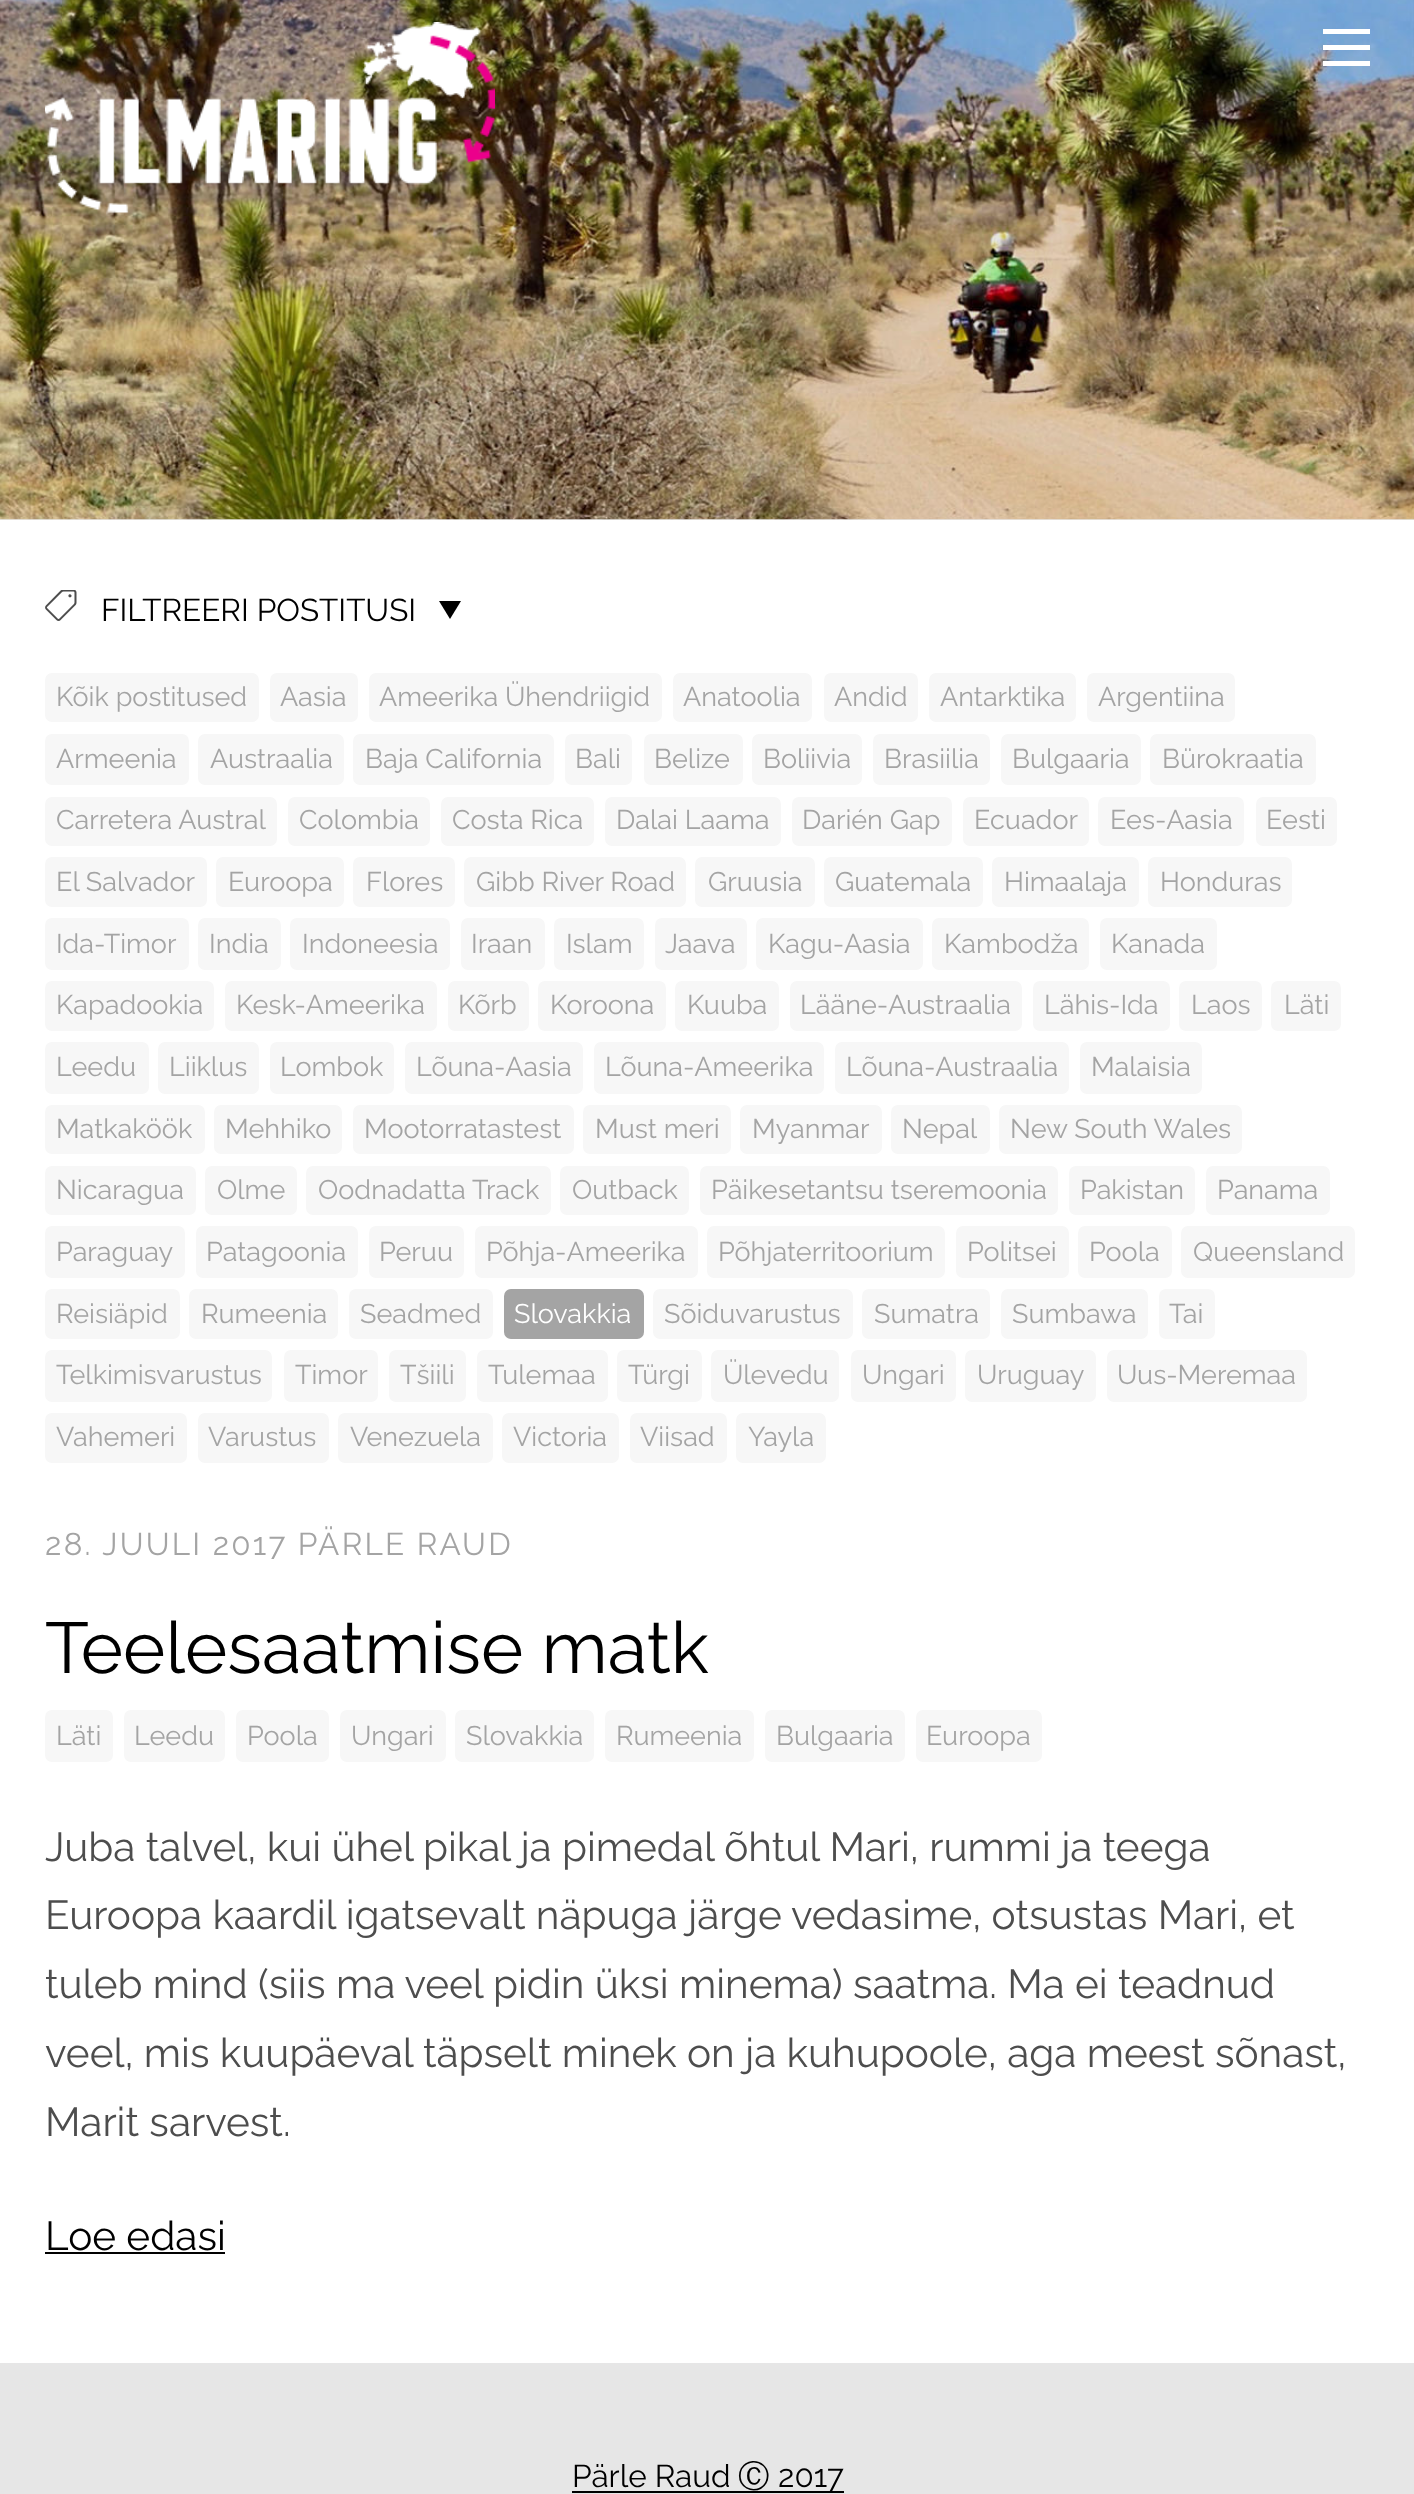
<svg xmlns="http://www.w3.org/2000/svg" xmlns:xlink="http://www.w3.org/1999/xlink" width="1414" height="2494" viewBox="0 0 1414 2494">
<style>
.cls-1{font:31.5px Raleway;fill:#000000}
.cls-2{font:27px Raleway;fill:#a4a4a4}
.cls-3{font:27px Raleway;fill:#ffffff}
.cls-4{font:31.5px Raleway;letter-spacing:2.25px;fill:#a4a4a4}
.cls-5{font:72px Raleway;fill:#000000}
.cls-6{font:40.5px Raleway;fill:#4d4d4d}
.cls-7{font:40.5px Raleway;fill:#000000}
.cls-8{font:500 31.5px WenQuanYi Zen Hei;fill:#000000}
</style>
<rect width="100%" height="100%" fill="#ffffff"/>
<rect fill="#e6e6e6" x="0" y="519" width="1414" height="1"/>
<image xlink:href="image0.png" x="0" y="0" width="1414" height="520"/>
<image xlink:href="image1.png" x="45" y="22" width="450" height="191"/>
<rect fill="#ffffff" x="1323" y="29" width="47" height="5"/>
<rect fill="#ffffff" x="1323" y="45" width="47" height="5"/>
<rect fill="#ffffff" x="1323" y="61" width="47" height="5"/>
<image xlink:href="image2.png" x="45" y="590" width="32" height="31"/>
<path fill="#000000" d="M439 601H461L450 619Z"/>
<rect fill="#f7f7f7" x="45" y="673" width="214" height="49" rx="7"/>
<rect fill="#f7f7f7" x="270" y="673" width="88" height="49" rx="7"/>
<rect fill="#f7f7f7" x="369" y="673" width="293" height="49" rx="7"/>
<rect fill="#f7f7f7" x="673" y="673" width="139" height="49" rx="7"/>
<rect fill="#f7f7f7" x="824" y="673" width="94" height="49" rx="7"/>
<rect fill="#f7f7f7" x="929" y="673" width="147" height="49" rx="7"/>
<rect fill="#f7f7f7" x="1087" y="673" width="148" height="49" rx="7"/>
<rect fill="#f7f7f7" x="45" y="734" width="144" height="51" rx="7"/>
<rect fill="#f7f7f7" x="198" y="734" width="146" height="51" rx="7"/>
<rect fill="#f7f7f7" x="353" y="734" width="201" height="51" rx="7"/>
<rect fill="#f7f7f7" x="565" y="734" width="67" height="51" rx="7"/>
<rect fill="#f7f7f7" x="644" y="734" width="99" height="51" rx="7"/>
<rect fill="#f7f7f7" x="752" y="734" width="110" height="51" rx="7"/>
<rect fill="#f7f7f7" x="873" y="734" width="117" height="51" rx="7"/>
<rect fill="#f7f7f7" x="1001" y="734" width="140" height="51" rx="7"/>
<rect fill="#f7f7f7" x="1150" y="734" width="166" height="51" rx="7"/>
<rect fill="#f7f7f7" x="45" y="797" width="232" height="49" rx="7"/>
<rect fill="#f7f7f7" x="288" y="797" width="142" height="49" rx="7"/>
<rect fill="#f7f7f7" x="441" y="797" width="153" height="49" rx="7"/>
<rect fill="#f7f7f7" x="605" y="797" width="176" height="49" rx="7"/>
<rect fill="#f7f7f7" x="792" y="797" width="160" height="49" rx="7"/>
<rect fill="#f7f7f7" x="963" y="797" width="126" height="49" rx="7"/>
<rect fill="#f7f7f7" x="1098" y="797" width="146" height="49" rx="7"/>
<rect fill="#f7f7f7" x="1256" y="797" width="81" height="49" rx="7"/>
<rect fill="#f7f7f7" x="45" y="857" width="162" height="50" rx="7"/>
<rect fill="#f7f7f7" x="216" y="857" width="128" height="50" rx="7"/>
<rect fill="#f7f7f7" x="353" y="857" width="102" height="50" rx="7"/>
<rect fill="#f7f7f7" x="464" y="857" width="222" height="50" rx="7"/>
<rect fill="#f7f7f7" x="695" y="857" width="120" height="50" rx="7"/>
<rect fill="#f7f7f7" x="824" y="857" width="159" height="50" rx="7"/>
<rect fill="#f7f7f7" x="992" y="857" width="147" height="50" rx="7"/>
<rect fill="#f7f7f7" x="1148" y="857" width="144" height="50" rx="7"/>
<rect fill="#f7f7f7" x="45" y="918" width="144" height="52" rx="7"/>
<rect fill="#f7f7f7" x="198" y="918" width="83" height="52" rx="7"/>
<rect fill="#f7f7f7" x="290" y="918" width="160" height="52" rx="7"/>
<rect fill="#f7f7f7" x="461" y="918" width="84" height="52" rx="7"/>
<rect fill="#f7f7f7" x="554" y="918" width="90" height="52" rx="7"/>
<rect fill="#f7f7f7" x="655" y="918" width="92" height="52" rx="7"/>
<rect fill="#f7f7f7" x="756" y="918" width="167" height="52" rx="7"/>
<rect fill="#f7f7f7" x="932" y="918" width="157" height="52" rx="7"/>
<rect fill="#f7f7f7" x="1100" y="918" width="117" height="52" rx="7"/>
<rect fill="#f7f7f7" x="45" y="981" width="169" height="50" rx="7"/>
<rect fill="#f7f7f7" x="225" y="981" width="212" height="50" rx="7"/>
<rect fill="#f7f7f7" x="448" y="981" width="81" height="50" rx="7"/>
<rect fill="#f7f7f7" x="538" y="981" width="128" height="50" rx="7"/>
<rect fill="#f7f7f7" x="675" y="981" width="104" height="50" rx="7"/>
<rect fill="#f7f7f7" x="790" y="981" width="232" height="50" rx="7"/>
<rect fill="#f7f7f7" x="1033" y="981" width="137" height="50" rx="7"/>
<rect fill="#f7f7f7" x="1179" y="981" width="83" height="50" rx="7"/>
<rect fill="#f7f7f7" x="1271" y="981" width="70" height="50" rx="7"/>
<rect fill="#f7f7f7" x="45" y="1042" width="104" height="52" rx="7"/>
<rect fill="#f7f7f7" x="158" y="1042" width="101" height="52" rx="7"/>
<rect fill="#f7f7f7" x="270" y="1042" width="124" height="52" rx="7"/>
<rect fill="#f7f7f7" x="405" y="1042" width="178" height="52" rx="7"/>
<rect fill="#f7f7f7" x="594" y="1042" width="230" height="52" rx="7"/>
<rect fill="#f7f7f7" x="835" y="1042" width="234" height="52" rx="7"/>
<rect fill="#f7f7f7" x="1080" y="1042" width="122" height="52" rx="7"/>
<rect fill="#f7f7f7" x="45" y="1105" width="160" height="49" rx="7"/>
<rect fill="#f7f7f7" x="214" y="1105" width="128" height="49" rx="7"/>
<rect fill="#f7f7f7" x="353" y="1105" width="221" height="49" rx="7"/>
<rect fill="#f7f7f7" x="583" y="1105" width="148" height="49" rx="7"/>
<rect fill="#f7f7f7" x="740" y="1105" width="142" height="49" rx="7"/>
<rect fill="#f7f7f7" x="891" y="1105" width="99" height="49" rx="7"/>
<rect fill="#f7f7f7" x="999" y="1105" width="243" height="49" rx="7"/>
<rect fill="#f7f7f7" x="45" y="1166" width="151" height="49" rx="7"/>
<rect fill="#f7f7f7" x="205" y="1166" width="92" height="49" rx="7"/>
<rect fill="#f7f7f7" x="306" y="1166" width="245" height="49" rx="7"/>
<rect fill="#f7f7f7" x="560" y="1166" width="129" height="49" rx="7"/>
<rect fill="#f7f7f7" x="700" y="1166" width="358" height="49" rx="7"/>
<rect fill="#f7f7f7" x="1069" y="1166" width="126" height="49" rx="7"/>
<rect fill="#f7f7f7" x="1206" y="1166" width="124" height="49" rx="7"/>
<rect fill="#f7f7f7" x="45" y="1226" width="140" height="52" rx="7"/>
<rect fill="#f7f7f7" x="196" y="1226" width="162" height="52" rx="7"/>
<rect fill="#f7f7f7" x="369" y="1226" width="95" height="52" rx="7"/>
<rect fill="#f7f7f7" x="475" y="1226" width="223" height="52" rx="7"/>
<rect fill="#f7f7f7" x="707" y="1226" width="238" height="52" rx="7"/>
<rect fill="#f7f7f7" x="956" y="1226" width="113" height="52" rx="7"/>
<rect fill="#f7f7f7" x="1078" y="1226" width="94" height="52" rx="7"/>
<rect fill="#f7f7f7" x="1181" y="1226" width="174" height="52" rx="7"/>
<rect fill="#f7f7f7" x="45" y="1289" width="135" height="50" rx="7"/>
<rect fill="#f7f7f7" x="189" y="1289" width="149" height="50" rx="7"/>
<rect fill="#f7f7f7" x="349" y="1289" width="144" height="50" rx="7"/>
<rect fill="#a4a4a4" x="504" y="1289" width="140" height="50" rx="7"/>
<rect fill="#f7f7f7" x="653" y="1289" width="200" height="50" rx="7"/>
<rect fill="#f7f7f7" x="862" y="1289" width="128" height="50" rx="7"/>
<rect fill="#f7f7f7" x="1001" y="1289" width="147" height="50" rx="7"/>
<rect fill="#f7f7f7" x="1159" y="1289" width="56" height="50" rx="7"/>
<rect fill="#f7f7f7" x="45" y="1350" width="227" height="52" rx="7"/>
<rect fill="#f7f7f7" x="284" y="1350" width="94" height="52" rx="7"/>
<rect fill="#f7f7f7" x="389" y="1350" width="77" height="52" rx="7"/>
<rect fill="#f7f7f7" x="477" y="1350" width="131" height="52" rx="7"/>
<rect fill="#f7f7f7" x="617" y="1350" width="85" height="52" rx="7"/>
<rect fill="#f7f7f7" x="711" y="1350" width="128" height="52" rx="7"/>
<rect fill="#f7f7f7" x="851" y="1350" width="105" height="52" rx="7"/>
<rect fill="#f7f7f7" x="965" y="1350" width="131" height="52" rx="7"/>
<rect fill="#f7f7f7" x="1107" y="1350" width="200" height="52" rx="7"/>
<rect fill="#f7f7f7" x="45" y="1413" width="142" height="50" rx="7"/>
<rect fill="#f7f7f7" x="198" y="1413" width="131" height="50" rx="7"/>
<rect fill="#f7f7f7" x="338" y="1413" width="155" height="50" rx="7"/>
<rect fill="#f7f7f7" x="502" y="1413" width="117" height="50" rx="7"/>
<rect fill="#f7f7f7" x="630" y="1413" width="97" height="50" rx="7"/>
<rect fill="#f7f7f7" x="736" y="1413" width="90" height="50" rx="7"/>
<rect fill="#f7f7f7" x="45" y="1710" width="68" height="52" rx="7"/>
<rect fill="#f7f7f7" x="124" y="1710" width="101" height="52" rx="7"/>
<rect fill="#f7f7f7" x="236" y="1710" width="93" height="52" rx="7"/>
<rect fill="#f7f7f7" x="340" y="1710" width="106" height="52" rx="7"/>
<rect fill="#f7f7f7" x="455" y="1710" width="139" height="52" rx="7"/>
<rect fill="#f7f7f7" x="605" y="1710" width="149" height="52" rx="7"/>
<rect fill="#f7f7f7" x="765" y="1710" width="140" height="52" rx="7"/>
<rect fill="#f7f7f7" x="916" y="1710" width="126" height="52" rx="7"/>
<rect fill="#000000" x="45" y="2252" width="180" height="2"/>
<rect fill="#e6e6e6" x="0" y="2363" width="1414" height="131"/>
<rect fill="#000000" x="572" y="2491" width="272" height="2"/>
<text class="cls-1" x="101" y="621">FILTREERI POSTITUSI</text>
<text class="cls-2" x="56" y="706">Kõik postitused</text>
<text class="cls-2" x="280" y="706">Aasia</text>
<text class="cls-2" x="379" y="706">Ameerika Ühendriigid</text>
<text class="cls-2" x="683" y="706">Anatoolia</text>
<text class="cls-2" x="834" y="706">Andid</text>
<text class="cls-2" x="940" y="706">Antarktika</text>
<text class="cls-2" x="1098" y="706">Argentiina</text>
<text class="cls-2" x="56" y="768">Armeenia</text>
<text class="cls-2" x="210" y="768">Austraalia</text>
<text class="cls-2" x="365" y="768">Baja California</text>
<text class="cls-2" x="575" y="768">Bali</text>
<text class="cls-2" x="654" y="768">Belize</text>
<text class="cls-2" x="763" y="768">Boliivia</text>
<text class="cls-2" x="884" y="768">Brasiilia</text>
<text class="cls-2" x="1012" y="768">Bulgaaria</text>
<text class="cls-2" x="1162" y="768">Bürokraatia</text>
<text class="cls-2" x="56" y="829">Carretera Austral</text>
<text class="cls-2" x="299" y="829">Colombia</text>
<text class="cls-2" x="452" y="829">Costa Rica</text>
<text class="cls-2" x="616" y="829">Dalai Laama</text>
<text class="cls-2" x="802" y="829">Darién Gap</text>
<text class="cls-2" x="974" y="829">Ecuador</text>
<text class="cls-2" x="1110" y="829">Ees-Aasia</text>
<text class="cls-2" x="1266" y="829">Eesti</text>
<text class="cls-2" x="56" y="891">El Salvador</text>
<text class="cls-2" x="228" y="891">Euroopa</text>
<text class="cls-2" x="366" y="891">Flores</text>
<text class="cls-2" x="476" y="891">Gibb River Road</text>
<text class="cls-2" x="708" y="891">Gruusia</text>
<text class="cls-2" x="835" y="891">Guatemala</text>
<text class="cls-2" x="1004" y="891">Himaalaja</text>
<text class="cls-2" x="1160" y="891">Honduras</text>
<text class="cls-2" x="56" y="953">Ida-Timor</text>
<text class="cls-2" x="209" y="953">India</text>
<text class="cls-2" x="302" y="953">Indoneesia</text>
<text class="cls-2" x="471" y="953">Iraan</text>
<text class="cls-2" x="566" y="953">Islam</text>
<text class="cls-2" x="665" y="953">Jaava</text>
<text class="cls-2" x="768" y="953">Kagu-Aasia</text>
<text class="cls-2" x="944" y="953">Kambodža</text>
<text class="cls-2" x="1111" y="953">Kanada</text>
<text class="cls-2" x="56" y="1014">Kapadookia</text>
<text class="cls-2" x="236" y="1014">Kesk-Ameerika</text>
<text class="cls-2" x="458" y="1014">Kõrb</text>
<text class="cls-2" x="550" y="1014">Koroona</text>
<text class="cls-2" x="687" y="1014">Kuuba</text>
<text class="cls-2" x="800" y="1014">Lääne-Austraalia</text>
<text class="cls-2" x="1044" y="1014">Lähis-Ida</text>
<text class="cls-2" x="1191" y="1014">Laos</text>
<text class="cls-2" x="1284" y="1014">Läti</text>
<text class="cls-2" x="56" y="1076">Leedu</text>
<text class="cls-2" x="169" y="1076">Liiklus</text>
<text class="cls-2" x="280" y="1076">Lombok</text>
<text class="cls-2" x="416" y="1076">Lõuna-Aasia</text>
<text class="cls-2" x="605" y="1076">Lõuna-Ameerika</text>
<text class="cls-2" x="846" y="1076">Lõuna-Austraalia</text>
<text class="cls-2" x="1091" y="1076">Malaisia</text>
<text class="cls-2" x="56" y="1138">Matkaköök</text>
<text class="cls-2" x="225" y="1138">Mehhiko</text>
<text class="cls-2" x="364" y="1138">Mootorratastest</text>
<text class="cls-2" x="595" y="1138">Must meri</text>
<text class="cls-2" x="752" y="1138">Myanmar</text>
<text class="cls-2" x="902" y="1138">Nepal</text>
<text class="cls-2" x="1010" y="1138">New South Wales</text>
<text class="cls-2" x="56" y="1199">Nicaragua</text>
<text class="cls-2" x="217" y="1199">Olme</text>
<text class="cls-2" x="318" y="1199">Oodnadatta Track</text>
<text class="cls-2" x="572" y="1199">Outback</text>
<text class="cls-2" x="711" y="1199">Päikesetantsu tseremoonia</text>
<text class="cls-2" x="1080" y="1199">Pakistan</text>
<text class="cls-2" x="1217" y="1199">Panama</text>
<text class="cls-2" x="56" y="1261">Paraguay</text>
<text class="cls-2" x="206" y="1261">Patagoonia</text>
<text class="cls-2" x="379" y="1261">Peruu</text>
<text class="cls-2" x="486" y="1261">Põhja-Ameerika</text>
<text class="cls-2" x="718" y="1261">Põhjaterritoorium</text>
<text class="cls-2" x="967" y="1261">Politsei</text>
<text class="cls-2" x="1089" y="1261">Poola</text>
<text class="cls-2" x="1193" y="1261">Queensland</text>
<text class="cls-2" x="56" y="1323">Reisiäpid</text>
<text class="cls-2" x="201" y="1323">Rumeenia</text>
<text class="cls-2" x="360" y="1323">Seadmed</text>
<text class="cls-3" x="514" y="1323">Slovakkia</text>
<text class="cls-2" x="664" y="1323">Sõiduvarustus</text>
<text class="cls-2" x="874" y="1323">Sumatra</text>
<text class="cls-2" x="1012" y="1323">Sumbawa</text>
<text class="cls-2" x="1169" y="1323">Tai</text>
<text class="cls-2" x="56" y="1384">Telkimisvarustus</text>
<text class="cls-2" x="295" y="1384">Timor</text>
<text class="cls-2" x="400" y="1384">Tšiili</text>
<text class="cls-2" x="488" y="1384">Tulemaa</text>
<text class="cls-2" x="628" y="1384">Türgi</text>
<text class="cls-2" x="723" y="1384">Ülevedu</text>
<text class="cls-2" x="862" y="1384">Ungari</text>
<text class="cls-2" x="977" y="1384">Uruguay</text>
<text class="cls-2" x="1117" y="1384">Uus-Meremaa</text>
<text class="cls-2" x="56" y="1446">Vahemeri</text>
<text class="cls-2" x="208" y="1446">Varustus</text>
<text class="cls-2" x="350" y="1446">Venezuela</text>
<text class="cls-2" x="513" y="1446">Victoria</text>
<text class="cls-2" x="640" y="1446">Viisad</text>
<text class="cls-2" x="748" y="1446">Yayla</text>
<text class="cls-4" x="45" y="1555">28. JUULI 2017 PÄRLE RAUD</text>
<text class="cls-5" x="45" y="1673">Teelesaatmise matk</text>
<text class="cls-2" x="56" y="1745">Läti</text>
<text class="cls-2" x="134" y="1745">Leedu</text>
<text class="cls-2" x="247" y="1745">Poola</text>
<text class="cls-2" x="351" y="1745">Ungari</text>
<text class="cls-2" x="466" y="1745">Slovakkia</text>
<text class="cls-2" x="616" y="1745">Rumeenia</text>
<text class="cls-2" x="776" y="1745">Bulgaaria</text>
<text class="cls-2" x="926" y="1745">Euroopa</text>
<text class="cls-6"><tspan x="45" y="1861">Juba talvel, kui ühel pikal ja pimedal õhtul Mari, rummi ja teega</tspan><tspan x="45" y="1929">Euroopa kaardil igatsevalt näpuga järge vedasime, otsustas Mari, et</tspan><tspan x="45" y="1998">tuleb mind (siis ma veel pidin üksi minema) saatma. Ma ei teadnud</tspan><tspan x="45" y="2067">veel, mis kuupäeval täpselt minek on ja kuhupoole, aga meest sõnast,</tspan><tspan x="45" y="2136">Marit sarvest.</tspan></text>
<text class="cls-7" x="45" y="2250">Loe edasi</text>
<text class="cls-1" x="572" y="2487">Pärle Raud</text>
<text class="cls-8" x="738" y="2487">Ⓒ</text>
<text class="cls-1" x="778" y="2487">2017</text>
</svg>
